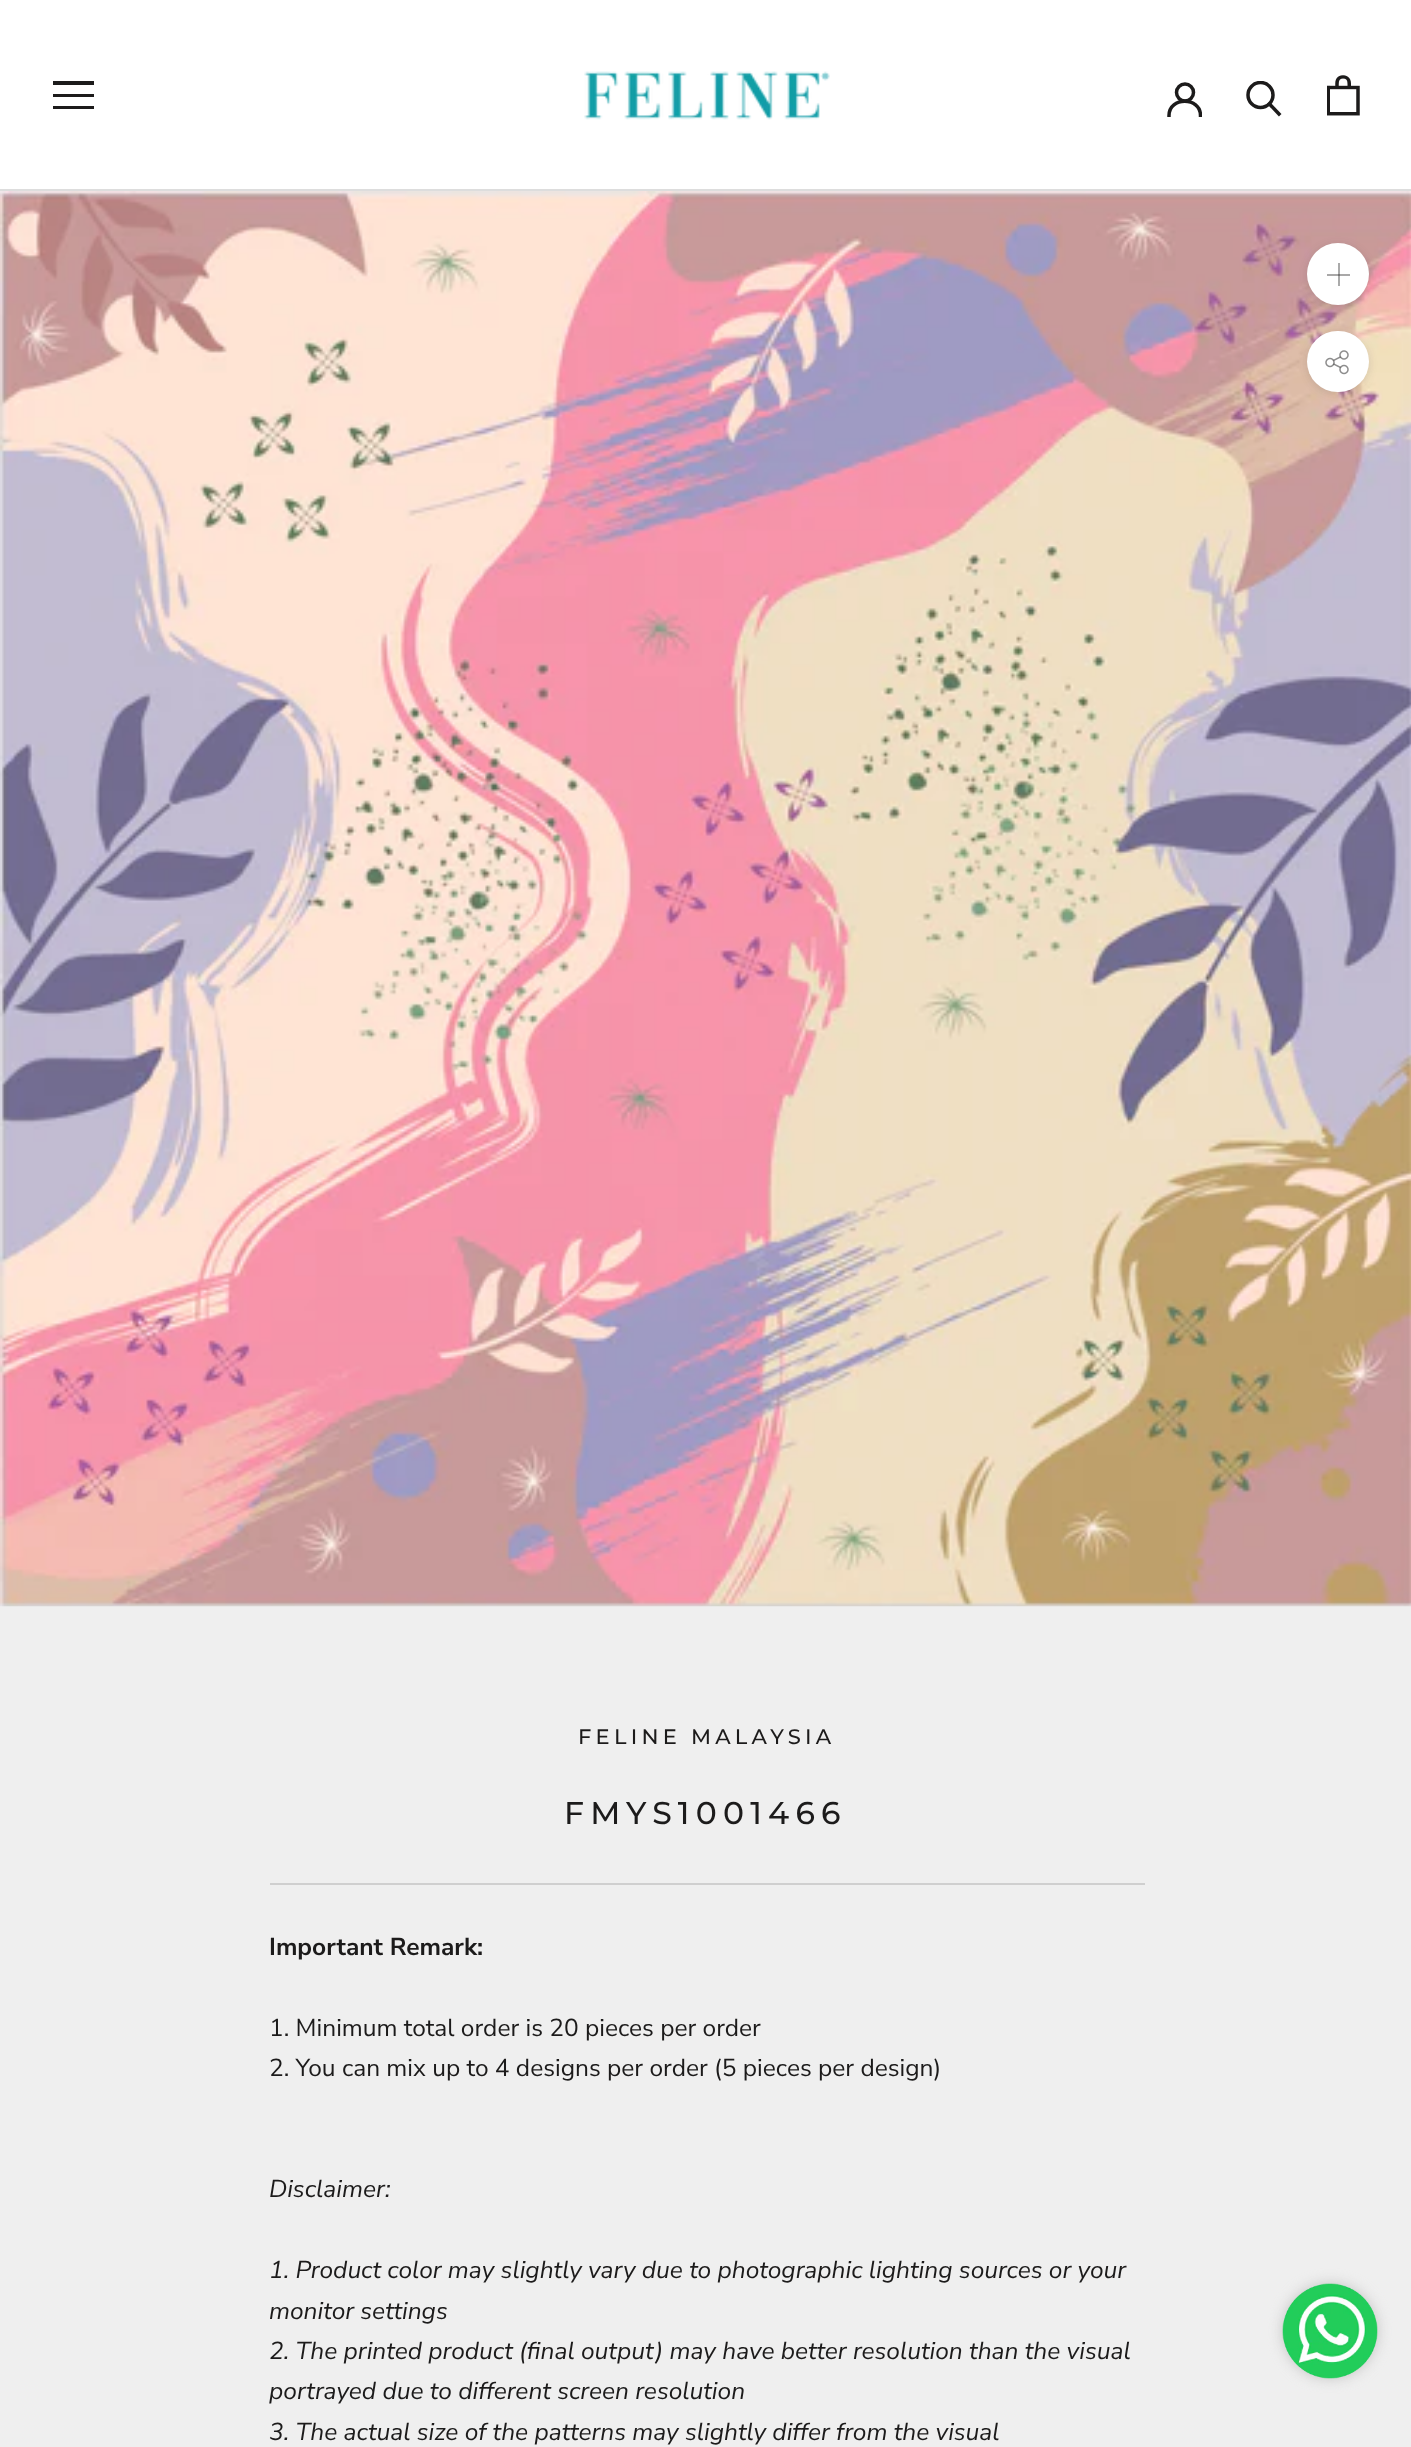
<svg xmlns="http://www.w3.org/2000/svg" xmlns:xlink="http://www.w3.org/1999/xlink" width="1411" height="2447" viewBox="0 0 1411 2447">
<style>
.cls-1{font:500 21px Montserrat;letter-spacing:4.25px;fill:#1c1b1b}
.cls-2{font:500 31.5px Montserrat;letter-spacing:6.25px;fill:#1c1b1b}
.cls-3{font:bold 24.5px Nunito Sans;fill:#1c1b1b}
.cls-4{font:24.5px Nunito Sans;fill:#1c1b1b}
.cls-5{font:italic 24.5px Nunito Sans;fill:#1c1b1b}
</style>
<defs>
<clipPath id="clip1"><rect x="53" y="81" width="42" height="29"/></clipPath>
<clipPath id="clip2"><rect x="1167" y="82" width="35" height="35"/></clipPath>
<clipPath id="clip3"><rect x="1246" y="81" width="37" height="36"/></clipPath>
</defs>
<rect width="100%" height="100%" fill="#efefef"/>
<rect fill="#ffffff" x="0" y="0" width="1411" height="189"/>
<rect fill="#dddddd" x="0" y="189" width="1411" height="2"/>
<g clip-path="url(#clip1)">
<path fill="#1c1b1b" d="M52 109V106H94V109ZM52 94H94V97H52ZM52 81H94V85H52Z"/>
</g>
<image xlink:href="image0.png" x="584" y="71" width="246" height="49"/>
<g clip-path="url(#clip2)">
<path fill="none" stroke="#1c1b1b" stroke-width="3.5" stroke-linecap="square" d="M1169 115.5C1169 96.5 1200.5 96.5 1200.5 115.5"/>
</g>
<circle fill="none" stroke="#1c1b1b" stroke-width="3.5" cx="1185" cy="92.5" r="8.5"/>
<path fill="none" stroke="#1c1b1b" stroke-width="3.5" stroke-linecap="square" d="M1279 114L1269.5 104"/>
<g clip-path="url(#clip3)">
<circle fill="none" stroke="#1c1b1b" stroke-width="3.5" cx="1260.5" cy="95" r="12.5"/>
</g>
<image xlink:href="image1.png" x="1327" y="75" width="33" height="41"/>
<image xlink:href="image2.png" x="0" y="191" width="1411" height="1416"/>
<rect fill="#363636" fill-opacity="0.15" filter="blur(4.5px)" x="1307" y="245" width="62" height="61" rx="30.5"/>
<circle fill="#ffffff" cx="1338" cy="274" r="31"/>
<rect fill="#aaaaaa" x="1338" y="263" width="2" height="23"/>
<rect fill="#1c1b1b" fill-opacity="0.38" x="1327" y="274" width="23" height="2"/>
<rect fill="#363636" fill-opacity="0.15" filter="blur(4.5px)" x="1307" y="333" width="62" height="61" rx="30.5"/>
<rect fill="#ffffff" x="1307" y="331" width="62" height="61" rx="30.5"/>
<image xlink:href="image3.png" x="1325" y="350" width="24" height="25"/>
<rect fill="#cfcfcf" x="270" y="1883" width="875" height="2"/>
<rect fill="#c2c2c2" filter="blur(7px)" x="1283" y="2284" width="94" height="94" rx="47"/>
<image xlink:href="image4.png" x="1282" y="2283" width="96" height="96"/>
<text class="cls-1" x="578" y="1744">FELINE MALAYSIA</text>
<text class="cls-2" x="564" y="1824">FMYS1001466</text>
<text class="cls-3" x="269" y="1955">Important Remark:</text>
<text class="cls-4"><tspan x="269" y="2036">1. Minimum total order is 20 pieces per order</tspan><tspan x="269" y="2076">2. You can mix up to 4 designs per order (5 pieces per design)</tspan></text>
<text class="cls-5" x="269" y="2197">Disclaimer:</text>
<text class="cls-5"><tspan x="269" y="2278">1. Product color may slightly vary due to photographic lighting sources or your</tspan><tspan x="269" y="2319">monitor settings</tspan><tspan x="269" y="2359">2. The printed product (final output) may have better resolution than the visual</tspan><tspan x="269" y="2399">portrayed due to different screen resolution</tspan><tspan x="269" y="2440">3. The actual size of the patterns may slightly differ from the visual</tspan></text>
</svg>
